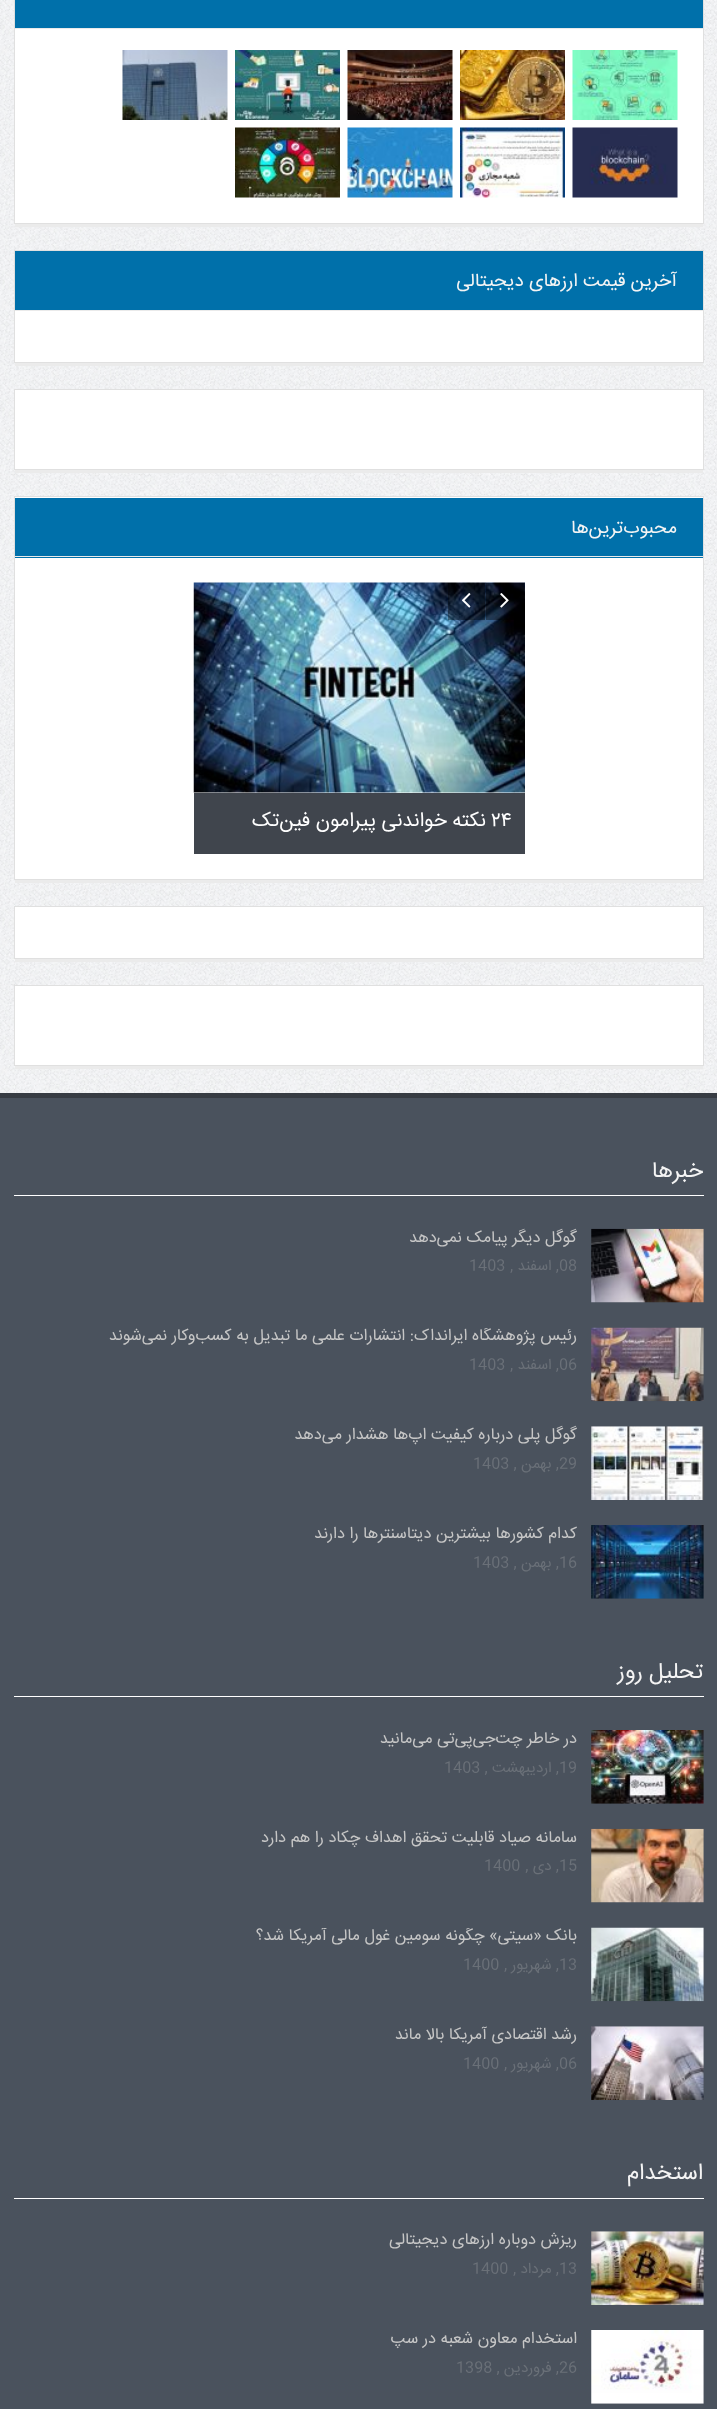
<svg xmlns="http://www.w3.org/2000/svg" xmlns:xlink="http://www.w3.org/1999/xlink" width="717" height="2409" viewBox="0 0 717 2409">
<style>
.cls-1{font:18.75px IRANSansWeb;direction:rtl;fill:#f4f4f4}
.cls-2{font:20px IRANSansWeb;fill:#ffffff}
.cls-3{font:20px IRANSansWeb;direction:rtl;fill:#ffffff}
.cls-4{font:22.5px IRANSansWeb;direction:rtl;fill:#f4f4f4}
.cls-5{font:16.25px IRANSansWeb;direction:rtl;fill:#c6c6c6}
.cls-6{font:15px IRANSansWeb;fill:#6a7078}
.cls-7{font:15px IRANSansWeb;direction:rtl;fill:#6a7078}
</style>
<defs>
<clipPath id="clip1"><rect x="14" y="1328" width="690" height="73"/></clipPath>
<clipPath id="clip2"><rect x="14" y="1928" width="690" height="73"/></clipPath>
</defs>
<rect width="100%" height="100%" fill="#ffffff"/>
<image xlink:href="image0.png" x="0" y="0" width="717" height="1093"/>
<rect fill="#ffffff" x="15" y="29" width="688" height="194"/>
<rect fill="none" stroke="#e0e0e0" x="14.5" y="-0.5" width="689" height="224"/>
<rect fill="#0070aa" x="15" y="0" width="688" height="28"/>
<rect fill="#eaeaea" x="15" y="28" width="688" height="1"/>
<image xlink:href="image1.png" x="572" y="50" width="106" height="70"/>
<image xlink:href="image2.png" x="460" y="50" width="105" height="70"/>
<image xlink:href="image3.png" x="347" y="50" width="106" height="70"/>
<image xlink:href="image4.png" x="235" y="50" width="105" height="70"/>
<image xlink:href="image5.png" x="122" y="50" width="106" height="70"/>
<image xlink:href="image6.png" x="572" y="127" width="106" height="71"/>
<image xlink:href="image7.png" x="460" y="127" width="105" height="71"/>
<image xlink:href="image8.png" x="347" y="127" width="106" height="71"/>
<image xlink:href="image9.png" x="235" y="127" width="105" height="71"/>
<rect fill="#ebebeb" x="15" y="224" width="688" height="3"/>
<rect fill="#ffffff" x="15" y="311" width="688" height="51"/>
<rect fill="none" stroke="#e0e0e0" x="14.5" y="250.5" width="689" height="112"/>
<rect fill="#0070aa" x="15" y="251" width="688" height="59"/>
<rect fill="#eaeaea" x="15" y="310" width="688" height="1"/>
<rect fill="#ebebeb" x="15" y="363" width="688" height="3"/>
<rect fill="#ffffff" stroke="#e0e0e0" x="14.5" y="389.5" width="689" height="80"/>
<rect fill="#ebebeb" x="15" y="470" width="688" height="3"/>
<rect fill="#ffffff" stroke="#e0e0e0" x="14.5" y="496.5" width="689" height="383"/>
<rect fill="#0070aa" x="15" y="498" width="688" height="60"/>
<rect fill="#eaeaea" x="15" y="556" width="688" height="1"/>
<image xlink:href="image12.png" x="193" y="582" width="332" height="211"/>
<rect fill="#000000" fill-opacity="0.4" x="486" y="583" width="38" height="37"/>
<image xlink:href="image10.png" x="500" y="593" width="9" height="15"/>
<rect fill="#000000" fill-opacity="0.4" x="448" y="583" width="37" height="37"/>
<image xlink:href="image11.png" x="462" y="593" width="9" height="15"/>
<rect fill="#40454d" x="194" y="793" width="331" height="61"/>
<rect fill="#ebebeb" x="15" y="880" width="688" height="3"/>
<rect fill="#ffffff" stroke="#e0e0e0" x="14.5" y="906.5" width="689" height="52"/>
<rect fill="#ebebeb" x="15" y="959" width="688" height="3"/>
<rect fill="#ffffff" stroke="#e0e0e0" x="14.5" y="985.5" width="689" height="80"/>
<rect fill="#ebebeb" x="15" y="1066" width="688" height="3"/>
<rect fill="#4a525d" x="0" y="1098" width="717" height="1311"/>
<rect fill="#373c43" x="0" y="1093" width="717" height="5"/>
<rect fill="#ffffff" x="14" y="1195" width="690" height="1"/>
<image xlink:href="image13.png" x="591" y="1228" width="113" height="75"/>
<image xlink:href="image14.png" x="591" y="1327" width="113" height="75"/>
<image xlink:href="image15.png" x="591" y="1426" width="113" height="74"/>
<image xlink:href="image16.png" x="591" y="1525" width="113" height="74"/>
<rect fill="#ffffff" x="14" y="1696" width="690" height="1"/>
<image xlink:href="image17.png" x="591" y="1730" width="113" height="74"/>
<image xlink:href="image18.png" x="591" y="1828" width="113" height="75"/>
<image xlink:href="image19.png" x="591" y="1927" width="113" height="75"/>
<image xlink:href="image20.png" x="591" y="2026" width="113" height="74"/>
<rect fill="#ffffff" x="14" y="2198" width="690" height="1"/>
<image xlink:href="image21.png" x="591" y="2231" width="113" height="74"/>
<image xlink:href="image22.png" x="591" y="2330" width="113" height="74"/>
<text class="cls-1" x="677" y="286">آخرین قیمت ارزهای دیجیتالی</text>
<text class="cls-1" x="677" y="533">محبوب‌ترین‌ها</text>
<text class="cls-2" x="491" y="826">۲۴</text>
<text class="cls-3" x="486" y="826">نکته خواندنی پیرامون فین‌تک</text>
<text class="cls-4" x="703" y="1177">خبرها</text>
<text class="cls-5" x="577" y="1242">گوگل دیگر پیامک نمی‌دهد</text>
<text class="cls-6" x="559" y="1270">08</text>
<text class="cls-7" x="559" y="1270">, اسفند ,</text>
<text class="cls-6" x="469" y="1270">1403</text>
<g clip-path="url(#clip1)">
<text class="cls-5" x="577" y="1340">رئیس پژوهشگاه ایرانداک: انتشارات علمی ما تبدیل به کسب‌وکار نمی‌شوند</text>
</g>
<text class="cls-6" x="559" y="1369">06</text>
<text class="cls-7" x="559" y="1369">, اسفند ,</text>
<text class="cls-6" x="469" y="1369">1403</text>
<text class="cls-5" x="577" y="1439">گوگل پلی درباره کیفیت اپ‌ها هشدار می‌دهد</text>
<text class="cls-6" x="559" y="1468">29</text>
<text class="cls-7" x="559" y="1468">, بهمن ,</text>
<text class="cls-6" x="473" y="1468">1403</text>
<text class="cls-5" x="577" y="1538">کدام کشورها بیشترین دیتاسنترها را دارند</text>
<text class="cls-6" x="559" y="1567">16</text>
<text class="cls-7" x="559" y="1567">, بهمن ,</text>
<text class="cls-6" x="473" y="1567">1403</text>
<text class="cls-4" x="703" y="1678">تحلیل روز</text>
<text class="cls-5" x="577" y="1743">در خاطر چت‌جی‌پی‌تی می‌مانید</text>
<text class="cls-6" x="559" y="1772">19</text>
<text class="cls-7" x="559" y="1772">, اردیبهشت ,</text>
<text class="cls-6" x="444" y="1772">1403</text>
<text class="cls-5" x="577" y="1842">سامانه صیاد قابلیت تحقق اهداف چکاد را هم دارد</text>
<text class="cls-6" x="559" y="1870">15</text>
<text class="cls-7" x="559" y="1870">, دی ,</text>
<text class="cls-6" x="484" y="1870">1400</text>
<g clip-path="url(#clip2)">
<text class="cls-5" x="577" y="1940">بانک «سیتی» چگونه سومین غول مالی آمریکا شد؟</text>
</g>
<text class="cls-6" x="559" y="1969">13</text>
<text class="cls-7" x="559" y="1969">, شهریور ,</text>
<text class="cls-6" x="463" y="1969">1400</text>
<text class="cls-5" x="577" y="2039">رشد اقتصادی آمریکا بالا ماند</text>
<text class="cls-6" x="559" y="2068">06</text>
<text class="cls-7" x="559" y="2068">, شهریور ,</text>
<text class="cls-6" x="463" y="2068">1400</text>
<text class="cls-4" x="703" y="2179">استخدام</text>
<text class="cls-5" x="577" y="2244">ریزش دوباره ارزهای دیجیتالی</text>
<text class="cls-6" x="559" y="2273">13</text>
<text class="cls-7" x="559" y="2273">, مرداد ,</text>
<text class="cls-6" x="472" y="2273">1400</text>
<text class="cls-5" x="577" y="2343">استخدام معاون شعبه در سپ</text>
<text class="cls-6" x="559" y="2372">26</text>
<text class="cls-7" x="559" y="2372">, فروردین ,</text>
<text class="cls-6" x="456" y="2372">1398</text>
</svg>
